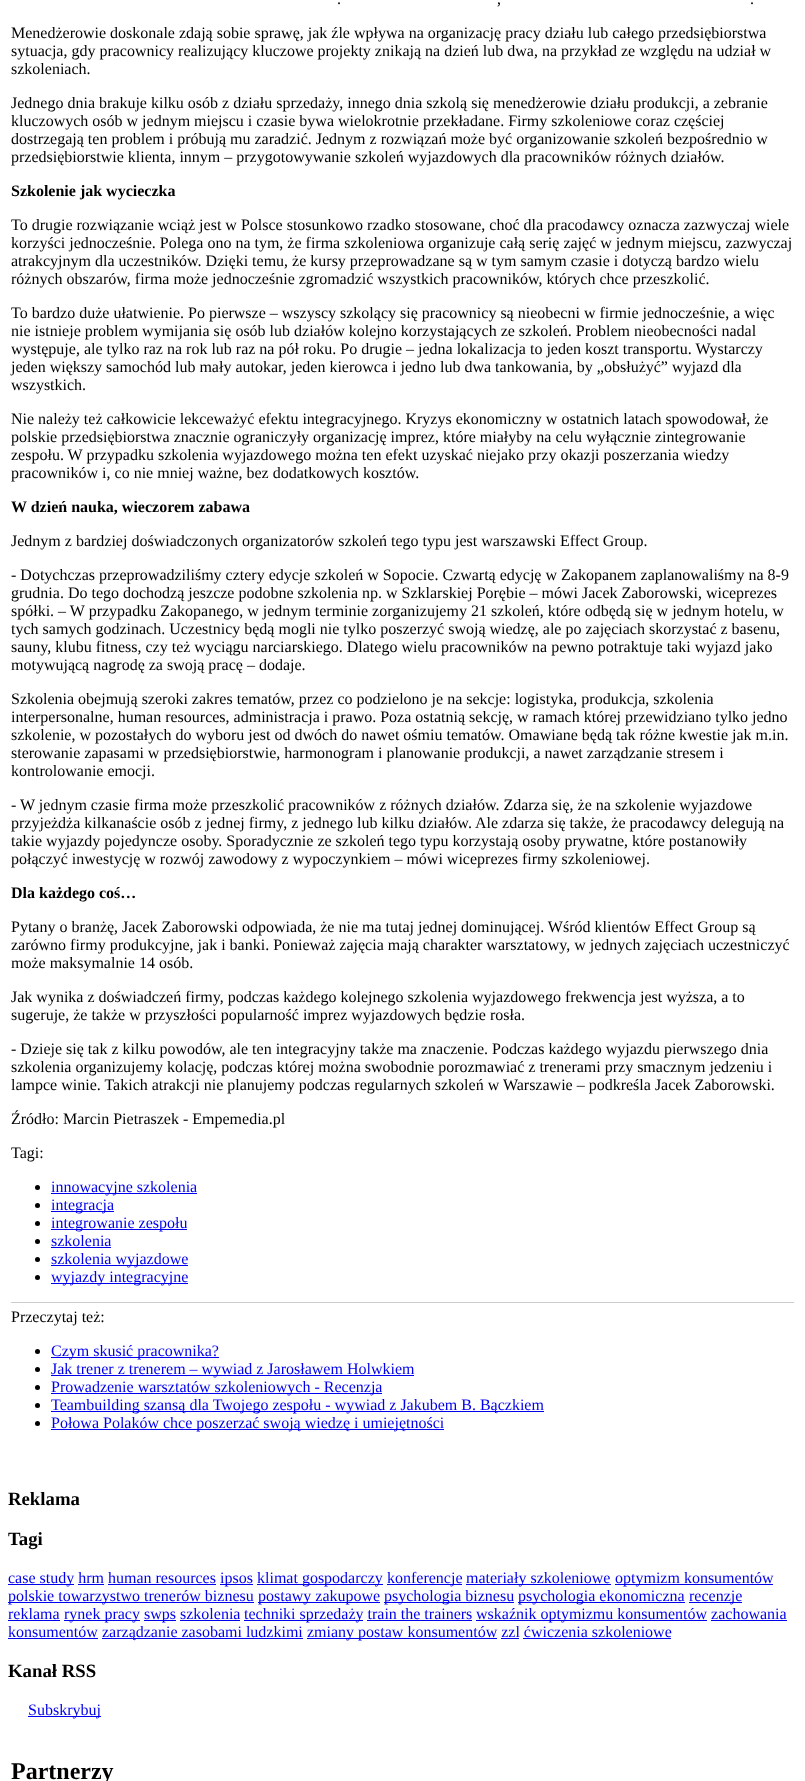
<svg xmlns="http://www.w3.org/2000/svg" xmlns:xlink="http://www.w3.org/1999/xlink" width="805" height="1781" viewBox="0 0 805 1781">
<style>
.cls-1{font:16px Liberation Serif;fill:#000000}
.cls-2{font:bold 16px Liberation Serif;fill:#000000}
.cls-3{font:16px Liberation Serif;fill:#0000ee}
.cls-4{font:bold 18.75px Liberation Serif;fill:#000000}
.cls-5{font:bold 24px Liberation Serif;fill:#000000}
</style>
<rect width="100%" height="100%" fill="#ffffff"/>
<circle fill="#000000" cx="37.5" cy="1187.5" r="2.5"/>
<rect fill="#0000ee" x="51" y="1193" width="146" height="1"/>
<circle fill="#000000" cx="37.5" cy="1205.5" r="2.5"/>
<rect fill="#0000ee" x="51" y="1211" width="63" height="1"/>
<circle fill="#000000" cx="37.5" cy="1223.5" r="2.5"/>
<rect fill="#0000ee" x="51" y="1229" width="136" height="1"/>
<circle fill="#000000" cx="37.5" cy="1241.5" r="2.5"/>
<rect fill="#0000ee" x="51" y="1247" width="60" height="1"/>
<circle fill="#000000" cx="37.5" cy="1259.5" r="2.5"/>
<rect fill="#0000ee" x="51" y="1265" width="137" height="1"/>
<circle fill="#000000" cx="37.5" cy="1277.5" r="2.5"/>
<rect fill="#0000ee" x="51" y="1283" width="137" height="1"/>
<rect fill="#cccccc" x="11" y="1302" width="783" height="1"/>
<circle fill="#000000" cx="37.5" cy="1351.5" r="2.5"/>
<rect fill="#0000ee" x="51" y="1357" width="168" height="1"/>
<circle fill="#000000" cx="37.5" cy="1369.5" r="2.5"/>
<rect fill="#0000ee" x="51" y="1375" width="363" height="1"/>
<circle fill="#000000" cx="37.5" cy="1387.5" r="2.5"/>
<rect fill="#0000ee" x="51" y="1393" width="331" height="1"/>
<circle fill="#000000" cx="37.5" cy="1405.5" r="2.5"/>
<rect fill="#0000ee" x="51" y="1411" width="493" height="1"/>
<circle fill="#000000" cx="37.5" cy="1423.5" r="2.5"/>
<rect fill="#0000ee" x="51" y="1429" width="393" height="1"/>
<rect fill="#0000ee" x="8" y="1584" width="66" height="1"/>
<rect fill="#0000ee" x="220" y="1584" width="33" height="1"/>
<rect fill="#0000ee" x="257" y="1584" width="126" height="1"/>
<rect fill="#0000ee" x="387" y="1584" width="75" height="1"/>
<rect fill="#0000ee" x="466" y="1584" width="145" height="1"/>
<rect fill="#0000ee" x="615" y="1584" width="158" height="1"/>
<rect fill="#0000ee" x="78" y="1584" width="26" height="1"/>
<rect fill="#0000ee" x="108" y="1584" width="108" height="1"/>
<rect fill="#0000ee" x="8" y="1602" width="246" height="1"/>
<rect fill="#0000ee" x="258" y="1602" width="122" height="1"/>
<rect fill="#0000ee" x="384" y="1602" width="130" height="1"/>
<rect fill="#0000ee" x="518" y="1602" width="167" height="1"/>
<rect fill="#0000ee" x="689" y="1602" width="53" height="1"/>
<rect fill="#0000ee" x="8" y="1620" width="52" height="1"/>
<rect fill="#0000ee" x="64" y="1620" width="76" height="1"/>
<rect fill="#0000ee" x="144" y="1620" width="32" height="1"/>
<rect fill="#0000ee" x="244" y="1620" width="119" height="1"/>
<rect fill="#0000ee" x="476" y="1620" width="231" height="1"/>
<rect fill="#0000ee" x="180" y="1620" width="60" height="1"/>
<rect fill="#0000ee" x="367" y="1620" width="105" height="1"/>
<rect fill="#0000ee" x="711" y="1620" width="76" height="1"/>
<rect fill="#0000ee" x="8" y="1638" width="90" height="1"/>
<rect fill="#0000ee" x="102" y="1638" width="201" height="1"/>
<rect fill="#0000ee" x="307" y="1638" width="190" height="1"/>
<rect fill="#0000ee" x="501" y="1638" width="18" height="1"/>
<rect fill="#0000ee" x="523" y="1638" width="148" height="1"/>
<rect fill="#0000ee" x="28" y="1716" width="73" height="1"/>
<text class="cls-1" x="337" y="4">.</text>
<text class="cls-1" x="497" y="4">,</text>
<text class="cls-1" x="750" y="4">.</text>
<text class="cls-1"><tspan x="11" y="38">Menedżerowie doskonale zdają sobie sprawę, jak źle wpływa na organizację pracy działu lub całego przedsiębiorstwa</tspan><tspan x="11" y="56">sytuacja, gdy pracownicy realizujący kluczowe projekty znikają na dzień lub dwa, na przykład ze względu na udział w</tspan><tspan x="11" y="74">szkoleniach.</tspan></text>
<text class="cls-1"><tspan x="11" y="108">Jednego dnia brakuje kilku osób z działu sprzedaży, innego dnia szkolą się menedżerowie działu produkcji, a zebranie</tspan><tspan x="11" y="126">kluczowych osób w jednym miejscu i czasie bywa wielokrotnie przekładane. Firmy szkoleniowe coraz częściej</tspan><tspan x="11" y="144">dostrzegają ten problem i próbują mu zaradzić. Jednym z rozwiązań może być organizowanie szkoleń bezpośrednio w</tspan><tspan x="11" y="162">przedsiębiorstwie klienta, innym – przygotowywanie szkoleń wyjazdowych dla pracowników różnych działów.</tspan></text>
<text class="cls-2" x="11" y="196">Szkolenie jak wycieczka</text>
<text class="cls-1"><tspan x="11" y="230">To drugie rozwiązanie wciąż jest w Polsce stosunkowo rzadko stosowane, choć dla pracodawcy oznacza zazwyczaj wiele</tspan><tspan x="11" y="248">korzyści jednocześnie. Polega ono na tym, że firma szkoleniowa organizuje całą serię zajęć w jednym miejscu, zazwyczaj</tspan><tspan x="11" y="266">atrakcyjnym dla uczestników. Dzięki temu, że kursy przeprowadzane są w tym samym czasie i dotyczą bardzo wielu</tspan><tspan x="11" y="284">różnych obszarów, firma może jednocześnie zgromadzić wszystkich pracowników, których chce przeszkolić.</tspan></text>
<text class="cls-1"><tspan x="11" y="318">To bardzo duże ułatwienie. Po pierwsze – wszyscy szkolący się pracownicy są nieobecni w firmie jednocześnie, a więc</tspan><tspan x="11" y="336">nie istnieje problem wymijania się osób lub działów kolejno korzystających ze szkoleń. Problem nieobecności nadal</tspan><tspan x="11" y="354">występuje, ale tylko raz na rok lub raz na pół roku. Po drugie – jedna lokalizacja to jeden koszt transportu. Wystarczy</tspan><tspan x="11" y="372">jeden większy samochód lub mały autokar, jeden kierowca i jedno lub dwa tankowania, by „obsłużyć” wyjazd dla</tspan><tspan x="11" y="390">wszystkich.</tspan></text>
<text class="cls-1"><tspan x="11" y="424">Nie należy też całkowicie lekceważyć efektu integracyjnego. Kryzys ekonomiczny w ostatnich latach spowodował, że</tspan><tspan x="11" y="442">polskie przedsiębiorstwa znacznie ograniczyły organizację imprez, które miałyby na celu wyłącznie zintegrowanie</tspan><tspan x="11" y="460">zespołu. W przypadku szkolenia wyjazdowego można ten efekt uzyskać niejako przy okazji poszerzania wiedzy</tspan><tspan x="11" y="478">pracowników i, co nie mniej ważne, bez dodatkowych kosztów.</tspan></text>
<text class="cls-2" x="11" y="512">W dzień nauka, wieczorem zabawa</text>
<text class="cls-1" x="11" y="546">Jednym z bardziej doświadczonych organizatorów szkoleń tego typu jest warszawski Effect Group.</text>
<text class="cls-1"><tspan x="11" y="580">- Dotychczas przeprowadziliśmy cztery edycje szkoleń w Sopocie. Czwartą edycję w Zakopanem zaplanowaliśmy na 8-9</tspan><tspan x="11" y="598">grudnia. Do tego dochodzą jeszcze podobne szkolenia np. w Szklarskiej Porębie – mówi Jacek Zaborowski, wiceprezes</tspan><tspan x="11" y="616">spółki. – W przypadku Zakopanego, w jednym terminie zorganizujemy 21 szkoleń, które odbędą się w jednym hotelu, w</tspan><tspan x="11" y="634">tych samych godzinach. Uczestnicy będą mogli nie tylko poszerzyć swoją wiedzę, ale po zajęciach skorzystać z basenu,</tspan><tspan x="11" y="652">sauny, klubu fitness, czy też wyciągu narciarskiego. Dlatego wielu pracowników na pewno potraktuje taki wyjazd jako</tspan><tspan x="11" y="670">motywującą nagrodę za swoją pracę – dodaje.</tspan></text>
<text class="cls-1"><tspan x="11" y="704">Szkolenia obejmują szeroki zakres tematów, przez co podzielono je na sekcje: logistyka, produkcja, szkolenia</tspan><tspan x="11" y="722">interpersonalne, human resources, administracja i prawo. Poza ostatnią sekcję, w ramach której przewidziano tylko jedno</tspan><tspan x="11" y="740">szkolenie, w pozostałych do wyboru jest od dwóch do nawet ośmiu tematów. Omawiane będą tak różne kwestie jak m.in.</tspan><tspan x="11" y="758">sterowanie zapasami w przedsiębiorstwie, harmonogram i planowanie produkcji, a nawet zarządzanie stresem i</tspan><tspan x="11" y="776">kontrolowanie emocji.</tspan></text>
<text class="cls-1"><tspan x="11" y="810">- W jednym czasie firma może przeszkolić pracowników z różnych działów. Zdarza się, że na szkolenie wyjazdowe</tspan><tspan x="11" y="828">przyjeżdża kilkanaście osób z jednej firmy, z jednego lub kilku działów. Ale zdarza się także, że pracodawcy delegują na</tspan><tspan x="11" y="846">takie wyjazdy pojedyncze osoby. Sporadycznie ze szkoleń tego typu korzystają osoby prywatne, które postanowiły</tspan><tspan x="11" y="864">połączyć inwestycję w rozwój zawodowy z wypoczynkiem – mówi wiceprezes firmy szkoleniowej.</tspan></text>
<text class="cls-2" x="11" y="898">Dla każdego coś…</text>
<text class="cls-1"><tspan x="11" y="932">Pytany o branżę, Jacek Zaborowski odpowiada, że nie ma tutaj jednej dominującej. Wśród klientów Effect Group są</tspan><tspan x="11" y="950">zarówno firmy produkcyjne, jak i banki. Ponieważ zajęcia mają charakter warsztatowy, w jednych zajęciach uczestniczyć</tspan><tspan x="11" y="968">może maksymalnie 14 osób.</tspan></text>
<text class="cls-1"><tspan x="11" y="1002">Jak wynika z doświadczeń firmy, podczas każdego kolejnego szkolenia wyjazdowego frekwencja jest wyższa, a to</tspan><tspan x="11" y="1020">sugeruje, że także w przyszłości popularność imprez wyjazdowych będzie rosła.</tspan></text>
<text class="cls-1"><tspan x="11" y="1054">- Dzieje się tak z kilku powodów, ale ten integracyjny także ma znaczenie. Podczas każdego wyjazdu pierwszego dnia</tspan><tspan x="11" y="1072">szkolenia organizujemy kolację, podczas której można swobodnie porozmawiać z trenerami przy smacznym jedzeniu i</tspan><tspan x="11" y="1090">lampce winie. Takich atrakcji nie planujemy podczas regularnych szkoleń w Warszawie – podkreśla Jacek Zaborowski.</tspan></text>
<text class="cls-1" x="11" y="1124">Źródło: Marcin Pietraszek - Empemedia.pl</text>
<text class="cls-1" x="11" y="1158">Tagi:</text>
<text class="cls-3"><tspan x="51" y="1192">innowacyjne szkolenia</tspan><tspan x="51" y="1210">integracja</tspan><tspan x="51" y="1228">integrowanie zespołu</tspan><tspan x="51" y="1246">szkolenia</tspan><tspan x="51" y="1264">szkolenia wyjazdowe</tspan><tspan x="51" y="1282">wyjazdy integracyjne</tspan></text>
<text class="cls-1" x="11" y="1322">Przeczytaj też:</text>
<text class="cls-3"><tspan x="51" y="1356">Czym skusić pracownika?</tspan><tspan x="51" y="1374">Jak trener z trenerem – wywiad z Jarosławem Holwkiem</tspan><tspan x="51" y="1392">Prowadzenie warsztatów szkoleniowych - Recenzja</tspan><tspan x="51" y="1410">Teambuilding szansą dla Twojego zespołu - wywiad z Jakubem B. Bączkiem</tspan><tspan x="51" y="1428">Połowa Polaków chce poszerzać swoją wiedzę i umiejętności</tspan></text>
<text class="cls-4" x="8" y="1505">Reklama</text>
<text class="cls-4" x="8" y="1545">Tagi</text>
<text class="cls-3" x="8" y="1583">case study hrm human resources</text>
<text class="cls-3" x="220" y="1583">ipsos</text>
<text class="cls-3" x="257" y="1583">klimat gospodarczy</text>
<text class="cls-3" x="387" y="1583">konferencje</text>
<text class="cls-3" x="466" y="1583">materiały szkoleniowe</text>
<text class="cls-3" x="615" y="1583">optymizm konsumentów</text>
<text class="cls-3" x="8" y="1601">polskie towarzystwo trenerów biznesu</text>
<text class="cls-3" x="258" y="1601">postawy zakupowe</text>
<text class="cls-3" x="384" y="1601">psychologia biznesu</text>
<text class="cls-3" x="518" y="1601">psychologia ekonomiczna</text>
<text class="cls-3" x="689" y="1601">recenzje</text>
<text class="cls-3" x="8" y="1619">reklama</text>
<text class="cls-3" x="64" y="1619">rynek pracy</text>
<text class="cls-3" x="144" y="1619">swps szkolenia</text>
<text class="cls-3" x="244" y="1619">techniki sprzedaży train the trainers</text>
<text class="cls-3" x="476" y="1619">wskaźnik optymizmu konsumentów zachowania</text>
<text class="cls-3" x="8" y="1637">konsumentów</text>
<text class="cls-3" x="102" y="1637">zarządzanie zasobami ludzkimi</text>
<text class="cls-3" x="307" y="1637">zmiany postaw konsumentów zzl ćwiczenia szkoleniowe</text>
<text class="cls-4" x="8" y="1677">Kanał RSS</text>
<text class="cls-3" x="28" y="1715">Subskrybuj</text>
<text class="cls-5" x="11" y="1779">Partnerzy</text>
</svg>
